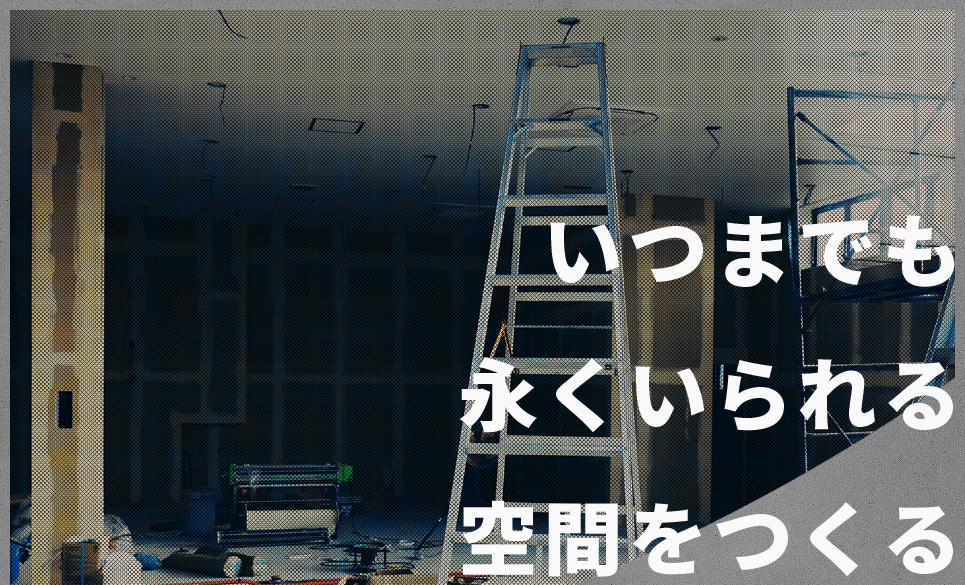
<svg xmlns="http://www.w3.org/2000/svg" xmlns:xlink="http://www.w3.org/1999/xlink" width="965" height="585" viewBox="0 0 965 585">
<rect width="100%" height="100%" fill="#ffffff"/>
<image xlink:href="image0.png" x="0" y="0" width="965" height="585"/>
<image xlink:href="image1.png" x="10" y="10" width="945" height="575"/>
<image xlink:href="image2.png" x="550" y="215" width="405" height="72"/>
<image xlink:href="image3.png" x="459" y="357" width="494" height="76"/>
<image xlink:href="image4.png" x="462" y="500" width="491" height="77"/>
</svg>
